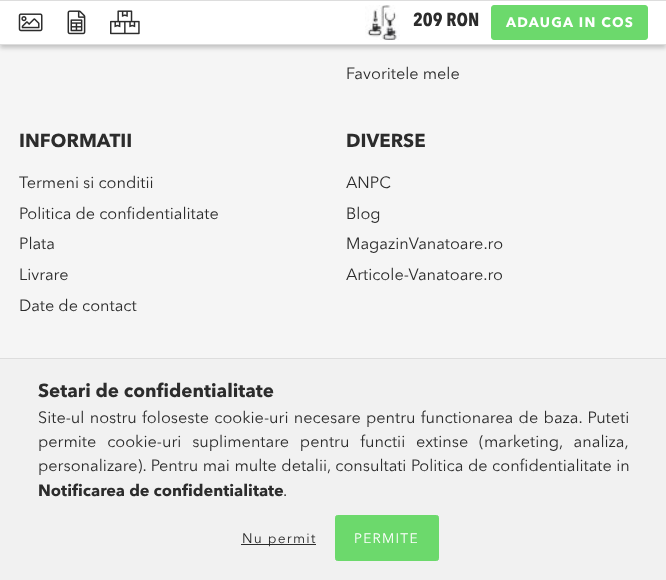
<svg xmlns="http://www.w3.org/2000/svg" xmlns:xlink="http://www.w3.org/1999/xlink" width="666" height="580" viewBox="0 0 666 580">
<style>
.cls-1{font:bold 18.75px Avenir Next;fill:#2c2c2c}
.cls-2{font:bold 13.75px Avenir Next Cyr;letter-spacing:1.25px;fill:#ffffff}
.cls-3{font:16.25px Avenir Next Cyr;fill:#2c2c2c}
.cls-4{font:bold 18.75px Avenir Next Cyr;fill:#2c2c2c}
.cls-5{font:bold 16.25px Avenir Next Cyr;fill:#2c2c2c}
.cls-6{font:13.75px Avenir Next Cyr;letter-spacing:1.25px;fill:#2c2c2c}
.cls-7{font:13.75px Avenir Next Cyr;letter-spacing:1.25px;fill:#ffffff}
</style>
<rect width="100%" height="100%" fill="#f5f5f5"/>
<rect fill="#000000" fill-opacity="0.2" filter="blur(2px)" x="0" y="3" width="666" height="45"/>
<rect fill="#ffffff" x="0" y="1" width="666" height="43"/>
<rect fill="#dddddd" x="0" y="0" width="666" height="1"/>
<rect fill="#dddddd" x="0" y="44" width="666" height="1"/>
<image xlink:href="image0.png" x="18" y="13" width="25" height="19"/>
<image xlink:href="image1.png" x="67" y="10" width="19" height="25"/>
<image xlink:href="image2.png" x="110" y="10" width="30" height="25"/>
<image xlink:href="image3.png" x="365" y="5" width="35" height="35"/>
<rect fill="#6cd96c" stroke="#6cd96c" x="491.5" y="5.5" width="156" height="34" rx="2.5"/>
<rect fill="#f1f1f1" x="0" y="359" width="666" height="221"/>
<rect fill="#dddddd" x="0" y="358" width="666" height="1"/>
<rect fill="#2c2c2c" x="241" y="544" width="75" height="1"/>
<rect fill="#6cd96c" stroke="#6cd96c" x="335.5" y="515.5" width="103" height="45" rx="2"/>
<text class="cls-1" x="413" y="26">209 RON</text>
<text class="cls-2" x="506" y="27">ADAUGA IN COS</text>
<text class="cls-3" x="346" y="79">Favoritele mele</text>
<text class="cls-4" x="19" y="147">INFORMATII</text>
<text class="cls-3"><tspan x="19" y="188">Termeni si conditii</tspan><tspan x="19" y="219">Politica de confidentialitate</tspan><tspan x="19" y="249">Plata</tspan><tspan x="19" y="280">Livrare</tspan><tspan x="19" y="311">Date de contact</tspan></text>
<text class="cls-4" x="346" y="147">DIVERSE</text>
<text class="cls-3"><tspan x="346" y="188">ANPC</tspan><tspan x="346" y="219">Blog</tspan><tspan x="346" y="249">MagazinVanatoare.ro</tspan><tspan x="346" y="280">Articole-Vanatoare.ro</tspan></text>
<text class="cls-4" x="38" y="397">Setari de confidentialitate</text>
<text class="cls-3"><tspan x="38" y="423" word-spacing="1.25">Site-ul nostru foloseste cookie-uri necesare pentru functionarea de baza. Puteti</tspan><tspan x="38" y="447" word-spacing="6.75">permite cookie-uri suplimentare pentru functii extinse (marketing, analiza,</tspan><tspan x="38" y="471" word-spacing="0.5">personalizare). Pentru mai multe detalii, consultati Politica de confidentialitate in</tspan></text>
<text class="cls-5" x="38" y="496">Notificarea de confidentialitate</text>
<text class="cls-3" x="283" y="496">.</text>
<text class="cls-6" x="242" y="543">Nu permit</text>
<text class="cls-7" x="354" y="543">PERMITE</text>
</svg>
